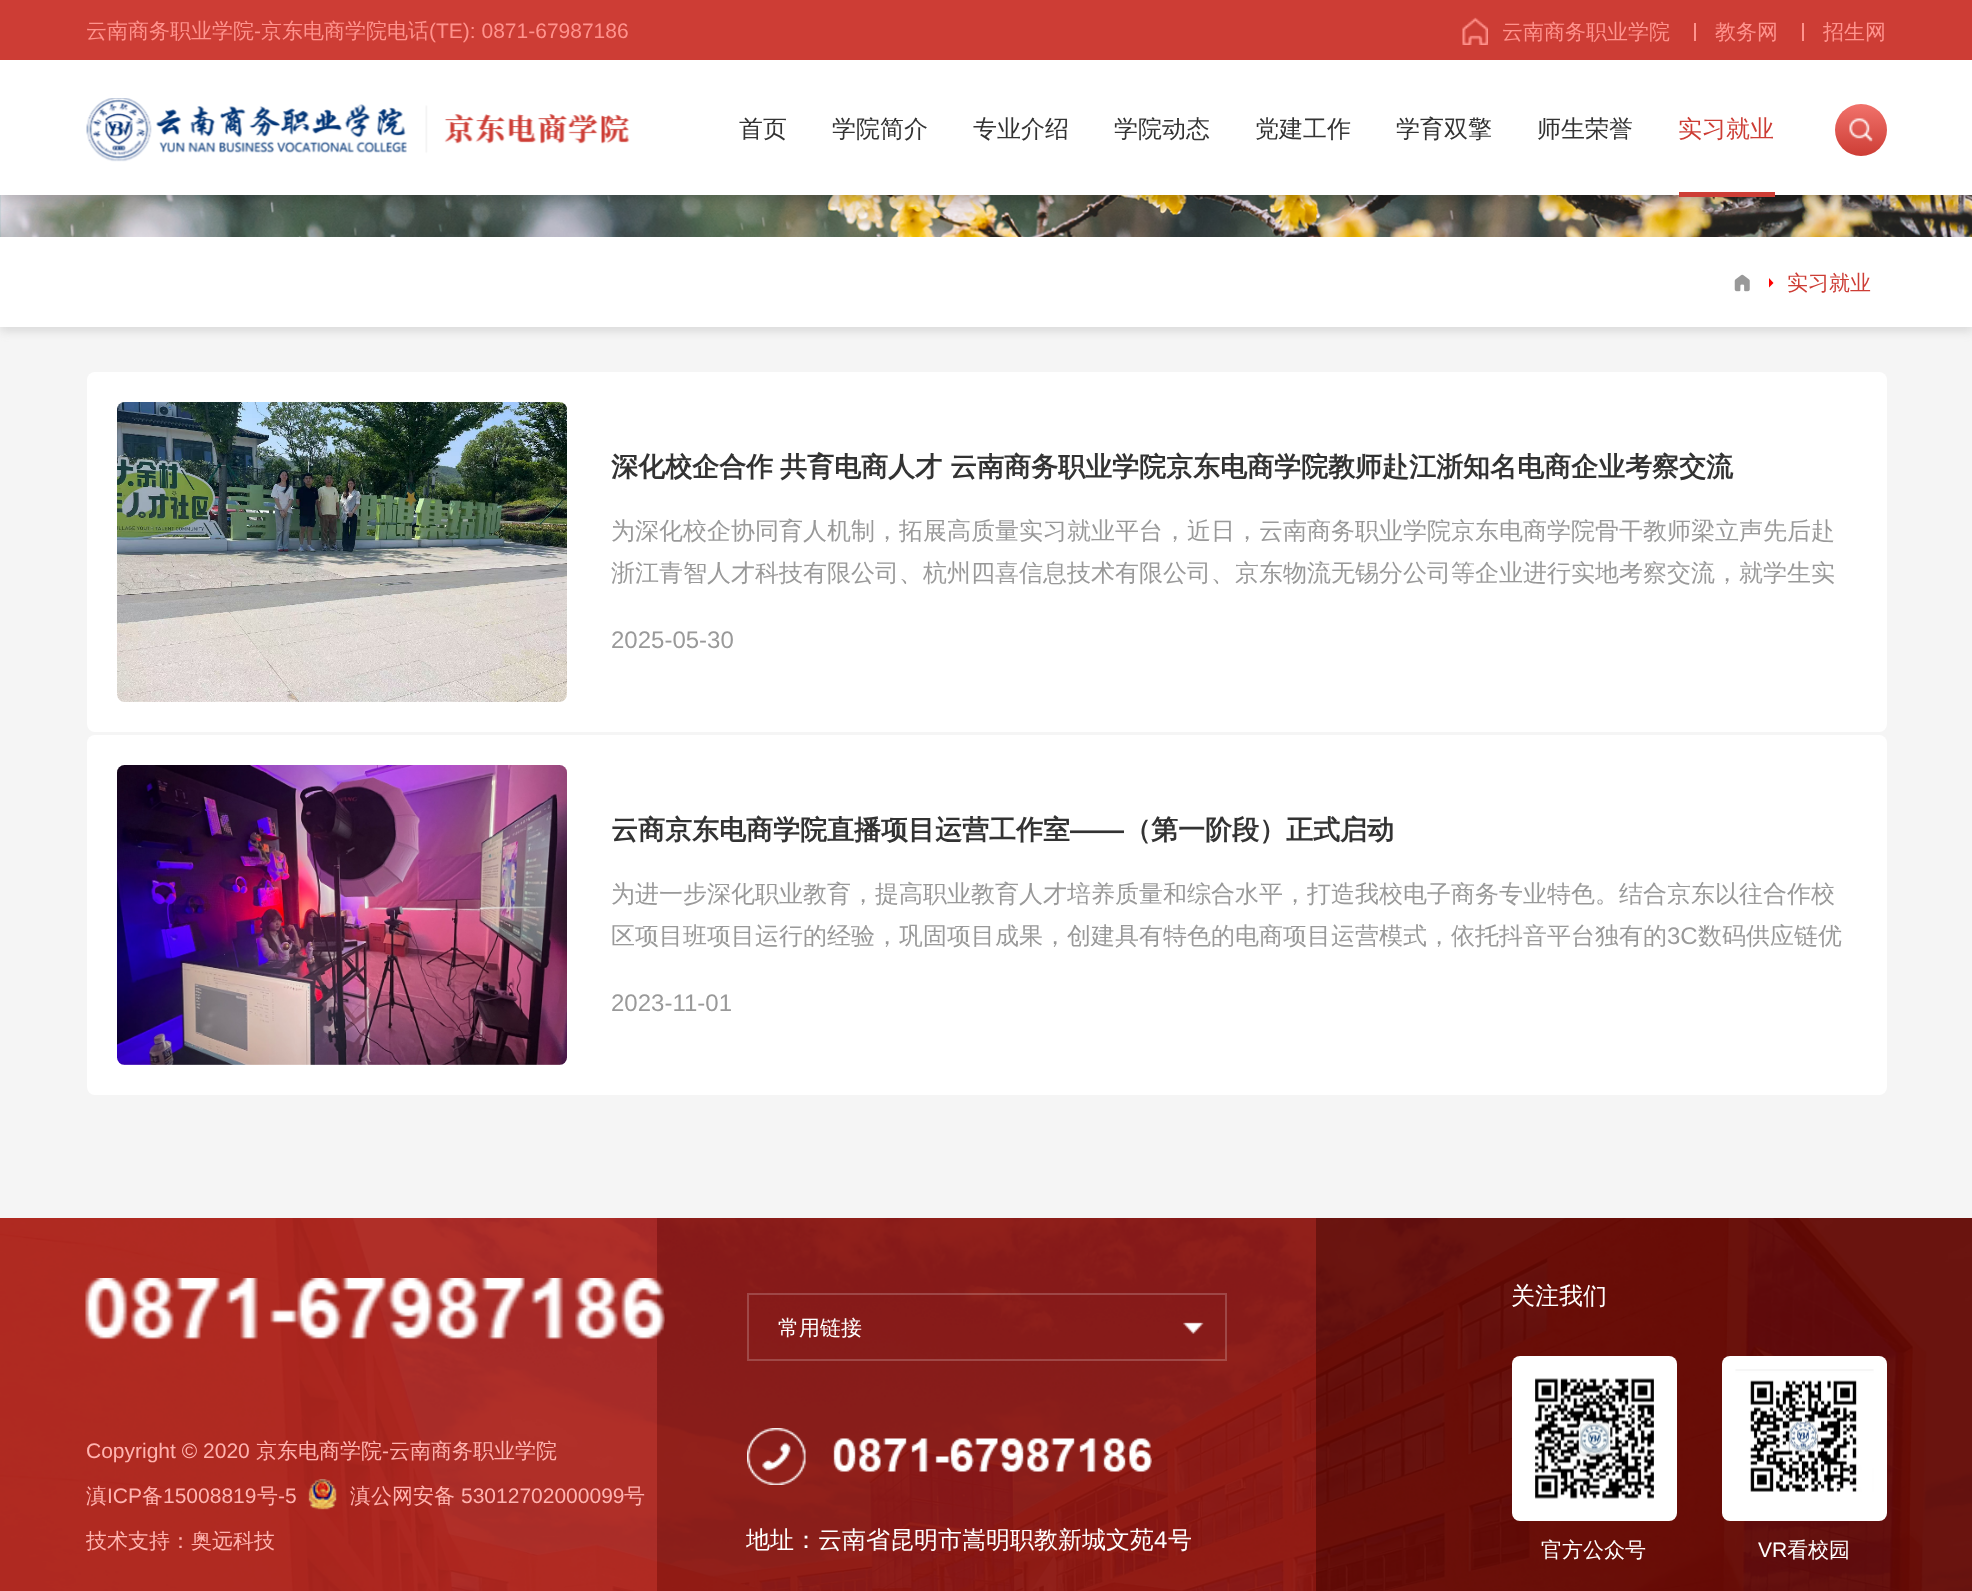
<svg xmlns="http://www.w3.org/2000/svg" xmlns:xlink="http://www.w3.org/1999/xlink" width="1972" height="1591" viewBox="0 0 1972 1591">
<style>
.cls-1{font:500 21px WenQuanYi Zen Hei;fill:#ff938d}
.cls-2{font:21px Liberation Sans;fill:#ff938d}
.cls-3{font:500 24px WenQuanYi Zen Hei;fill:#333333}
.cls-4{font:500 24px WenQuanYi Zen Hei;fill:#cd3d35}
.cls-5{font:500 21px WenQuanYi Zen Hei;fill:#cd3d35}
.cls-6{font:bold 27px WenQuanYi Zen Hei;fill:#333333}
.cls-7{font:500 24px WenQuanYi Zen Hei;fill:#999999}
.cls-8{font:24px Liberation Sans;fill:#999999}
.cls-9{font:bold 27px Liberation Sans;fill:#333333}
.cls-10{font:21px Liberation Sans;fill:#ffb3af}
.cls-11{font:500 21px WenQuanYi Zen Hei;fill:#ffb3af}
.cls-12{font:500 21px WenQuanYi Zen Hei;fill:#ffffff}
.cls-13{font:500 24px WenQuanYi Zen Hei;fill:#ffffff}
.cls-14{font:24px Liberation Sans;fill:#ffffff}
.cls-15{font:21px Liberation Sans;fill:#ffffff}
</style>
<defs>
<linearGradient id="g1" gradientUnits="userSpaceOnUse" x1="1861" y1="156" x2="1861" y2="104"><stop offset="0" stop-color="#cd3d35"/><stop offset="1" stop-color="#f1726b"/></linearGradient>
</defs>
<rect width="100%" height="100%" fill="#f5f5f5"/>
<rect fill="#dcdcdc" filter="blur(4px)" x="0" y="242" width="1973" height="90"/>
<image xlink:href="image3.png" x="0" y="195" width="1972" height="42"/>
<rect fill="#000000" fill-opacity="0.2" filter="blur(6px)" x="0" y="3" width="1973" height="197"/>
<rect fill="#cd3d35" x="0" y="0" width="1972" height="60"/>
<image xlink:href="image0.png" x="1462" y="17" width="26" height="28"/>
<rect fill="#ff938d" x="1694" y="23" width="2" height="18"/>
<rect fill="#ff938d" x="1802" y="23" width="2" height="18"/>
<rect fill="#ffffff" x="0" y="60" width="1972" height="135"/>
<image xlink:href="image1.png" x="86" y="98" width="544" height="64"/>
<rect fill="#cd3d35" x="1679" y="192" width="96" height="5"/>
<circle fill="url(#g1)" cx="1861" cy="130" r="26"/>
<image xlink:href="image2.png" x="1849" y="118" width="24" height="24"/>
<rect fill="#ffffff" x="0" y="237" width="1972" height="90"/>
<image xlink:href="image4.png" x="1734" y="274" width="16" height="18"/>
<path fill="#ff0000" d="M1769 287.5V278L1773.5 283Z"/>
<rect fill="#ffffff" x="87" y="372" width="1800" height="360" rx="8"/>
<image xlink:href="image5.png" x="117" y="402" width="450" height="300"/>
<rect fill="#ffffff" x="87" y="735" width="1800" height="360" rx="8"/>
<image xlink:href="image6.png" x="117" y="765" width="450" height="300"/>
<rect fill="#ad251e" x="0" y="1218" width="657" height="373"/>
<rect fill="#8d160f" x="657" y="1218" width="659" height="373"/>
<rect fill="#640904" x="1316" y="1218" width="656" height="373"/>
<image xlink:href="image7.png" x="0" y="1218" width="1972" height="373"/>
<image xlink:href="image8.png" x="85" y="1278" width="580" height="62"/>
<image xlink:href="image9.png" x="308" y="1479" width="29" height="31"/>
<rect fill="none" stroke="#ffffff" stroke-opacity="0.2" stroke-width="2" x="748" y="1294" width="478" height="66"/>
<image xlink:href="image10.png" x="1183" y="1322" width="21" height="12"/>
<image xlink:href="image11.png" x="747" y="1428" width="59" height="57"/>
<image xlink:href="image12.png" x="833" y="1438" width="319" height="34"/>
<rect fill="#ffffff" x="1512" y="1356" width="165" height="165" rx="8"/>
<image xlink:href="image13.png" x="1535" y="1378" width="119" height="121"/>
<rect fill="#ffffff" x="1722" y="1356" width="165" height="165" rx="8"/>
<image xlink:href="image14.png" x="1735" y="1369" width="139" height="123"/>
<text class="cls-1" x="86" y="38">云南商务职业学院</text>
<text class="cls-2" x="254" y="38">-</text>
<text class="cls-1" x="261" y="38">京东电商学院电话</text>
<text class="cls-2" x="429" y="38">(TE): 0871-67987186</text>
<text class="cls-1" x="1502" y="39">云南商务职业学院</text>
<text class="cls-1" x="1715" y="39">教务网</text>
<text class="cls-1" x="1823" y="39">招生网</text>
<text class="cls-3" x="739" y="137">首页</text>
<text class="cls-3" x="832" y="137">学院简介</text>
<text class="cls-3" x="973" y="137">专业介绍</text>
<text class="cls-3" x="1114" y="137">学院动态</text>
<text class="cls-3" x="1255" y="137">党建工作</text>
<text class="cls-3" x="1396" y="137">学育双擎</text>
<text class="cls-3" x="1537" y="137">师生荣誉</text>
<text class="cls-4" x="1678" y="137">实习就业</text>
<text class="cls-5" x="1787" y="290">实习就业</text>
<text class="cls-6" x="611" y="476" word-spacing="-1">深化校企合作 共育电商人才</text>
<text class="cls-6" x="950" y="476">云南商务职业学院京东电商学院教师赴江浙知名电商企业考察交流</text>
<text class="cls-7"><tspan x="611" y="539">为深化校企协同育人机制，拓展高质量实习就业平台，近日，云南商务职业学院京东电商学院骨干教师梁立声先后赴</tspan><tspan x="611" y="581">浙江青智人才科技有限公司、杭州四喜信息技术有限公司、京东物流无锡分公司等企业进行实地考察交流，就学生实</tspan></text>
<text class="cls-8" x="611" y="648">2025-05-30</text>
<text class="cls-6" x="611" y="839">云商京东电商学院直播项目运营工作室</text>
<text class="cls-9" x="1070" y="839">——</text>
<text class="cls-6" x="1124" y="839">（第一阶段）正式启动</text>
<text class="cls-7"><tspan x="611" y="902">为进一步深化职业教育，提高职业教育人才培养质量和综合水平，打造我校电子商务专业特色。结合京东以往合作校</tspan><tspan x="611" y="944">区项目班项目运行的经验，巩固项目成果，创建具有特色的电商项目运营模式，依托抖音平台独有的</tspan></text>
<text class="cls-8" x="1667" y="944">3C</text>
<text class="cls-7" x="1698" y="944">数码供应链优</text>
<text class="cls-8" x="611" y="1011">2023-11-01</text>
<text class="cls-10" x="86" y="1458">Copyright © 2020</text>
<text class="cls-11" x="256" y="1458">京东电商学院</text>
<text class="cls-10" x="382" y="1458">-</text>
<text class="cls-11" x="389" y="1458">云南商务职业学院</text>
<text class="cls-11" x="86" y="1503">滇</text>
<text class="cls-10" x="107" y="1503">ICP</text>
<text class="cls-11" x="142" y="1503">备</text>
<text class="cls-10" x="163" y="1503">15008819</text>
<text class="cls-11" x="257" y="1503">号</text>
<text class="cls-10" x="278" y="1503">-5</text>
<text class="cls-11" x="350" y="1503">滇公网安备</text>
<text class="cls-10" x="461" y="1503">53012702000099</text>
<text class="cls-11" x="624" y="1503">号</text>
<text class="cls-11" x="86" y="1548">技术支持：奥远科技</text>
<text class="cls-12" x="778" y="1335">常用链接</text>
<text class="cls-13" x="746" y="1548">地址：云南省昆明市嵩明职教新城文苑</text>
<text class="cls-14" x="1154" y="1548">4</text>
<text class="cls-13" x="1168" y="1548">号</text>
<text class="cls-13" x="1511" y="1304">关注我们</text>
<text class="cls-12" x="1541" y="1557">官方公众号</text>
<text class="cls-15" x="1758" y="1557">VR</text>
<text class="cls-12" x="1787" y="1557">看校园</text>
</svg>
